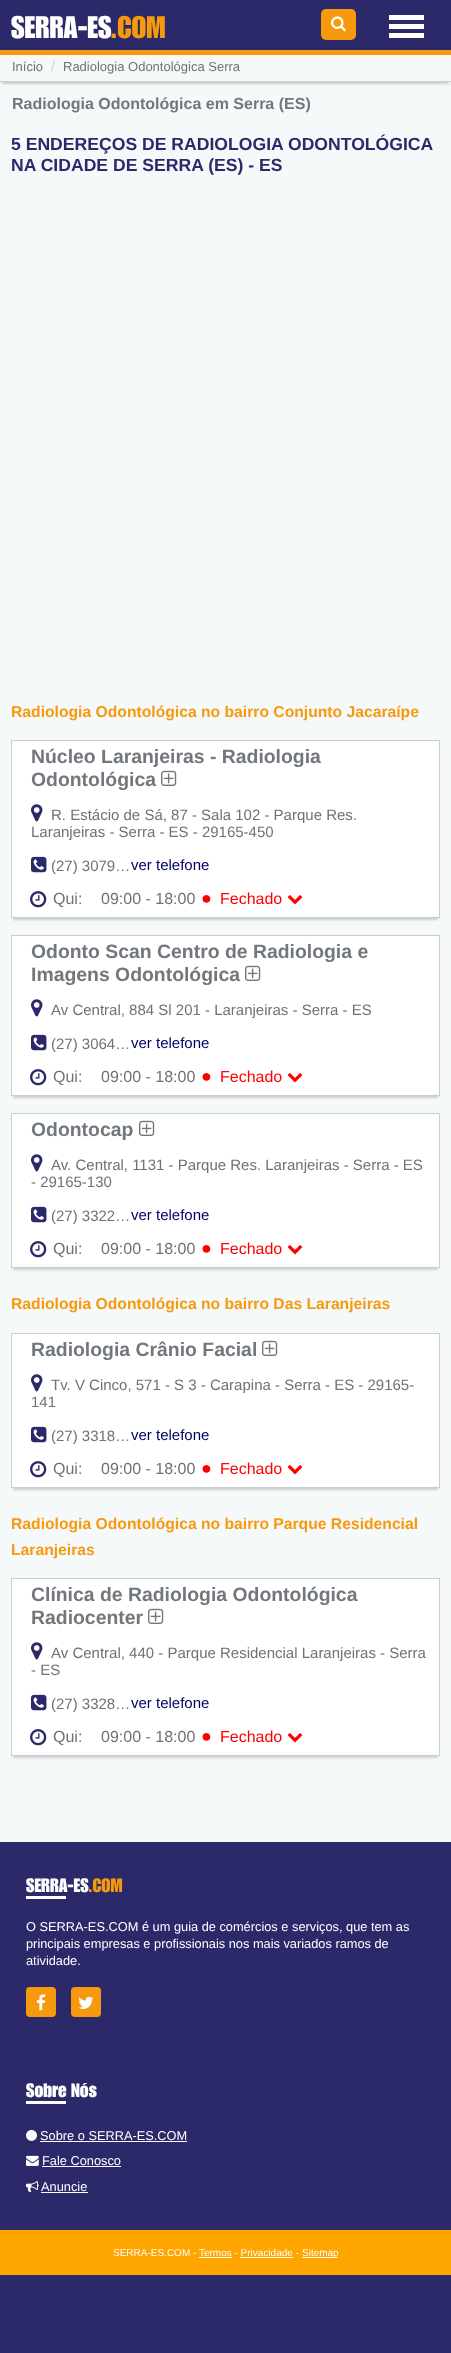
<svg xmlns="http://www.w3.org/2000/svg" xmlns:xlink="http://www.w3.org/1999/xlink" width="451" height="2353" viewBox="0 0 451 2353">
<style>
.cls-1{font:500 30.5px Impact;fill:#ffffff}
.cls-2{font:500 30.5px Impact;fill:#f6990d}
.cls-3{font:13px Liberation Sans;fill:#717171}
.cls-4{font:14px Liberation Sans;fill:#cfcfcf}
.cls-5{font:bold 16px Liberation Sans;fill:#71777c}
.cls-6{font:bold 17.6px Liberation Sans;fill:#2b296a}
.cls-7{font:bold 15.7px Liberation Sans;fill:#f6990d}
.cls-8{font:bold 19.4px Liberation Sans;fill:#71777c}
.cls-9{font:15px Liberation Sans;fill:#717171}
.cls-10{font:15px Liberation Sans;fill:#000066}
.cls-11{font:16px Liberation Sans;fill:#717171}
.cls-12{font:18px Liberation Sans;fill:#ff0000}
.cls-13{font:16px Liberation Sans;fill:#ff0000}
.cls-14{font:500 19px Impact;fill:#ffffff}
.cls-15{font:500 19px Impact;fill:#f6990d}
.cls-16{font:12.8px Liberation Sans;fill:#ffffff}
.cls-17{font:10px Liberation Sans;fill:#ffffff}
</style>
<defs>
<clipPath id="clip1"><rect x="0" y="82" width="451" height="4"/></clipPath>
<clipPath id="clip2"><rect x="25" y="856" width="106" height="18"/></clipPath>
<clipPath id="clip3"><rect x="25" y="1034" width="106" height="18"/></clipPath>
<clipPath id="clip4"><rect x="25" y="1206" width="106" height="18"/></clipPath>
<clipPath id="clip5"><rect x="25" y="1426" width="106" height="18"/></clipPath>
<clipPath id="clip6"><rect x="25" y="1694" width="106" height="18"/></clipPath>
</defs>
<rect width="100%" height="100%" fill="#2b296a"/>
<rect fill="#f6990d" x="0" y="50" width="451" height="5"/>
<rect fill="#f6990d" x="321" y="9" width="35" height="31" rx="5"/>
<image xlink:href="image0.png" x="331" y="16" width="15" height="16"/>
<rect fill="#ffffff" x="389" y="15" width="35" height="5"/>
<rect fill="#ffffff" x="389" y="24" width="35" height="5"/>
<rect fill="#ffffff" x="389" y="33" width="35" height="5"/>
<rect fill="#f6f9fa" x="0" y="55" width="451" height="1787"/>
<g clip-path="url(#clip1)">
<rect fill="#cbcdce" filter="blur(1px)" x="2" y="62" width="447" height="22"/>
</g>
<rect fill="#cbcdce" x="0" y="81" width="451" height="1"/>
<rect fill="#cbcdce" filter="blur(1px)" x="13" y="746" width="425" height="174"/>
<rect fill="#ffffff" stroke="#cbcdce" x="11.5" y="740.5" width="428" height="177"/>
<image xlink:href="image1.png" x="161" y="770" width="16" height="16"/>
<image xlink:href="image2.png" x="31" y="804" width="12" height="18"/>
<image xlink:href="image3.png" x="31" y="856" width="16" height="17"/>
<image xlink:href="image4.png" x="30" y="891" width="17" height="17"/>
<image xlink:href="image5.png" x="287" y="895" width="16" height="10"/>
<rect fill="#cbcdce" filter="blur(1px)" x="13" y="941" width="425" height="157"/>
<rect fill="#ffffff" stroke="#cbcdce" x="11.5" y="935.5" width="428" height="160"/>
<image xlink:href="image1.png" x="245" y="965" width="16" height="16"/>
<image xlink:href="image2.png" x="31" y="999" width="12" height="18"/>
<image xlink:href="image3.png" x="31" y="1034" width="16" height="17"/>
<image xlink:href="image4.png" x="30" y="1069" width="17" height="17"/>
<image xlink:href="image5.png" x="287" y="1073" width="16" height="10"/>
<rect fill="#cbcdce" filter="blur(1px)" x="13" y="1119" width="425" height="151"/>
<rect fill="#ffffff" stroke="#cbcdce" x="11.5" y="1113.5" width="428" height="154"/>
<image xlink:href="image1.png" x="139" y="1120" width="16" height="16"/>
<image xlink:href="image2.png" x="31" y="1154" width="12" height="18"/>
<image xlink:href="image3.png" x="31" y="1206" width="16" height="17"/>
<image xlink:href="image4.png" x="30" y="1241" width="17" height="17"/>
<image xlink:href="image5.png" x="287" y="1245" width="16" height="10"/>
<rect fill="#cbcdce" filter="blur(1px)" x="13" y="1339" width="425" height="151"/>
<rect fill="#ffffff" stroke="#cbcdce" x="11.5" y="1333.5" width="428" height="154"/>
<image xlink:href="image1.png" x="262" y="1340" width="16" height="16"/>
<image xlink:href="image2.png" x="31" y="1374" width="12" height="18"/>
<image xlink:href="image3.png" x="31" y="1426" width="16" height="17"/>
<image xlink:href="image4.png" x="30" y="1461" width="17" height="17"/>
<image xlink:href="image5.png" x="287" y="1465" width="16" height="10"/>
<rect fill="#cbcdce" filter="blur(1px)" x="13" y="1584" width="425" height="174"/>
<rect fill="#ffffff" stroke="#cbcdce" x="11.5" y="1578.5" width="428" height="177"/>
<image xlink:href="image1.png" x="148" y="1608" width="16" height="16"/>
<image xlink:href="image2.png" x="31" y="1642" width="12" height="18"/>
<image xlink:href="image3.png" x="31" y="1694" width="16" height="17"/>
<image xlink:href="image4.png" x="30" y="1729" width="17" height="17"/>
<image xlink:href="image5.png" x="287" y="1733" width="16" height="10"/>
<rect fill="#ffffff" x="26" y="1896" width="40" height="3"/>
<rect fill="#f6990d" x="26" y="1987" width="30" height="30" rx="4"/>
<image xlink:href="image6.png" x="36" y="1994" width="10" height="17"/>
<rect fill="#f6990d" x="71" y="1987" width="30" height="30" rx="4"/>
<image xlink:href="image7.png" x="78" y="1996" width="16" height="13"/>
<rect fill="#ffffff" x="26" y="2101" width="40" height="3"/>
<image xlink:href="image8.png" x="26" y="2129" width="11" height="12"/>
<rect fill="#ffffff" x="40" y="2141" width="147" height="1"/>
<image xlink:href="image9.png" x="26" y="2155" width="13" height="11"/>
<rect fill="#ffffff" x="42" y="2166" width="79" height="1"/>
<image xlink:href="image10.png" x="26" y="2181" width="13" height="11"/>
<rect fill="#ffffff" x="41" y="2192" width="47" height="1"/>
<rect fill="#ffa500" x="0" y="2230" width="451" height="45"/>
<rect fill="#ffffff" x="302" y="2257" width="36" height="1"/>
<rect fill="#ffffff" x="199" y="2257" width="33" height="1"/>
<rect fill="#ffffff" x="240" y="2257" width="53" height="1"/>
<text class="cls-1" x="11" y="38">SERRA-ES</text>
<text class="cls-2" x="110" y="38">.COM</text>
<text class="cls-3" x="12" y="71">Início</text>
<text class="cls-4" x="51" y="71">/</text>
<text class="cls-3" x="63" y="71">Radiologia Odontológica Serra</text>
<text class="cls-5" x="12" y="109">Radiologia Odontológica em Serra (ES)</text>
<text class="cls-6"><tspan x="11" y="150">5 ENDEREÇOS DE RADIOLOGIA ODONTOLÓGICA</tspan><tspan x="11" y="171">NA CIDADE DE SERRA (ES) - ES</tspan></text>
<text class="cls-7" x="11" y="717">Radiologia Odontológica no bairro Conjunto Jacaraípe</text>
<text class="cls-8"><tspan x="31" y="763">Núcleo Laranjeiras - Radiologia</tspan><tspan x="31" y="786">Odontológica</tspan></text>
<text class="cls-9" x="51" y="820">R. Estácio de Sá, 87 - Sala 102 - Parque Res.</text>
<text class="cls-9" x="31" y="837">Laranjeiras - Serra - ES - 29165-450</text>
<g clip-path="url(#clip2)">
<text class="cls-9" x="51" y="871">(27) 3079…</text>
</g>
<text class="cls-10" x="131" y="870">ver telefone</text>
<text class="cls-11" x="53" y="904">Qui:</text>
<text class="cls-11" x="101" y="904">09:00 - 18:00</text>
<text class="cls-12" x="201" y="904">●</text>
<text class="cls-13" x="220" y="904">Fechado</text>
<text class="cls-8"><tspan x="31" y="958">Odonto Scan Centro de Radiologia e</tspan><tspan x="31" y="981">Imagens Odontológica</tspan></text>
<text class="cls-9" x="51" y="1015">Av Central, 884 Sl 201 - Laranjeiras - Serra - ES</text>
<g clip-path="url(#clip3)">
<text class="cls-9" x="51" y="1049">(27) 3064…</text>
</g>
<text class="cls-10" x="131" y="1048">ver telefone</text>
<text class="cls-11" x="53" y="1082">Qui:</text>
<text class="cls-11" x="101" y="1082">09:00 - 18:00</text>
<text class="cls-12" x="201" y="1082">●</text>
<text class="cls-13" x="220" y="1082">Fechado</text>
<text class="cls-8" x="31" y="1136">Odontocap</text>
<text class="cls-9" x="51" y="1170">Av. Central, 1131 - Parque Res. Laranjeiras - Serra - ES</text>
<text class="cls-9" x="31" y="1187">- 29165-130</text>
<g clip-path="url(#clip4)">
<text class="cls-9" x="51" y="1221">(27) 3322…</text>
</g>
<text class="cls-10" x="131" y="1220">ver telefone</text>
<text class="cls-11" x="53" y="1254">Qui:</text>
<text class="cls-11" x="101" y="1254">09:00 - 18:00</text>
<text class="cls-12" x="201" y="1254">●</text>
<text class="cls-13" x="220" y="1254">Fechado</text>
<text class="cls-7" x="11" y="1309">Radiologia Odontológica no bairro Das Laranjeiras</text>
<text class="cls-8" x="31" y="1356">Radiologia Crânio Facial</text>
<text class="cls-9" x="51" y="1390">Tv. V Cinco, 571 - S 3 - Carapina - Serra - ES - 29165-</text>
<text class="cls-9" x="31" y="1407">141</text>
<g clip-path="url(#clip5)">
<text class="cls-9" x="51" y="1441">(27) 3318…</text>
</g>
<text class="cls-10" x="131" y="1440">ver telefone</text>
<text class="cls-11" x="53" y="1474">Qui:</text>
<text class="cls-11" x="101" y="1474">09:00 - 18:00</text>
<text class="cls-12" x="201" y="1474">●</text>
<text class="cls-13" x="220" y="1474">Fechado</text>
<text class="cls-7"><tspan x="11" y="1529">Radiologia Odontológica no bairro Parque Residencial</tspan><tspan x="11" y="1555">Laranjeiras</tspan></text>
<text class="cls-8"><tspan x="31" y="1601">Clínica de Radiologia Odontológica</tspan><tspan x="31" y="1624">Radiocenter</tspan></text>
<text class="cls-9" x="51" y="1658">Av Central, 440 - Parque Residencial Laranjeiras - Serra</text>
<text class="cls-9" x="31" y="1675">- ES</text>
<g clip-path="url(#clip6)">
<text class="cls-9" x="51" y="1709">(27) 3328…</text>
</g>
<text class="cls-10" x="131" y="1708">ver telefone</text>
<text class="cls-11" x="53" y="1742">Qui:</text>
<text class="cls-11" x="101" y="1742">09:00 - 18:00</text>
<text class="cls-12" x="201" y="1742">●</text>
<text class="cls-13" x="220" y="1742">Fechado</text>
<text class="cls-14" x="26" y="1892">SERRA-ES</text>
<text class="cls-15" x="88" y="1892">.COM</text>
<text class="cls-16"><tspan x="26" y="1931">O SERRA-ES.COM é um guia de comércios e serviços, que tem as</tspan><tspan x="26" y="1948">principais empresas e profissionais nos mais variados ramos de</tspan><tspan x="26" y="1965">atividade.</tspan></text>
<text class="cls-14" x="26" y="2097">Sobre Nós</text>
<text class="cls-16" x="40" y="2140">Sobre o SERRA-ES.COM</text>
<text class="cls-16" x="42" y="2165">Fale Conosco</text>
<text class="cls-16" x="41" y="2191">Anuncie</text>
<text class="cls-17" x="113" y="2256">SERRA-ES.COM - Termos - Privacidade -</text>
<text class="cls-17" x="302" y="2256">Sitemap</text>
</svg>
